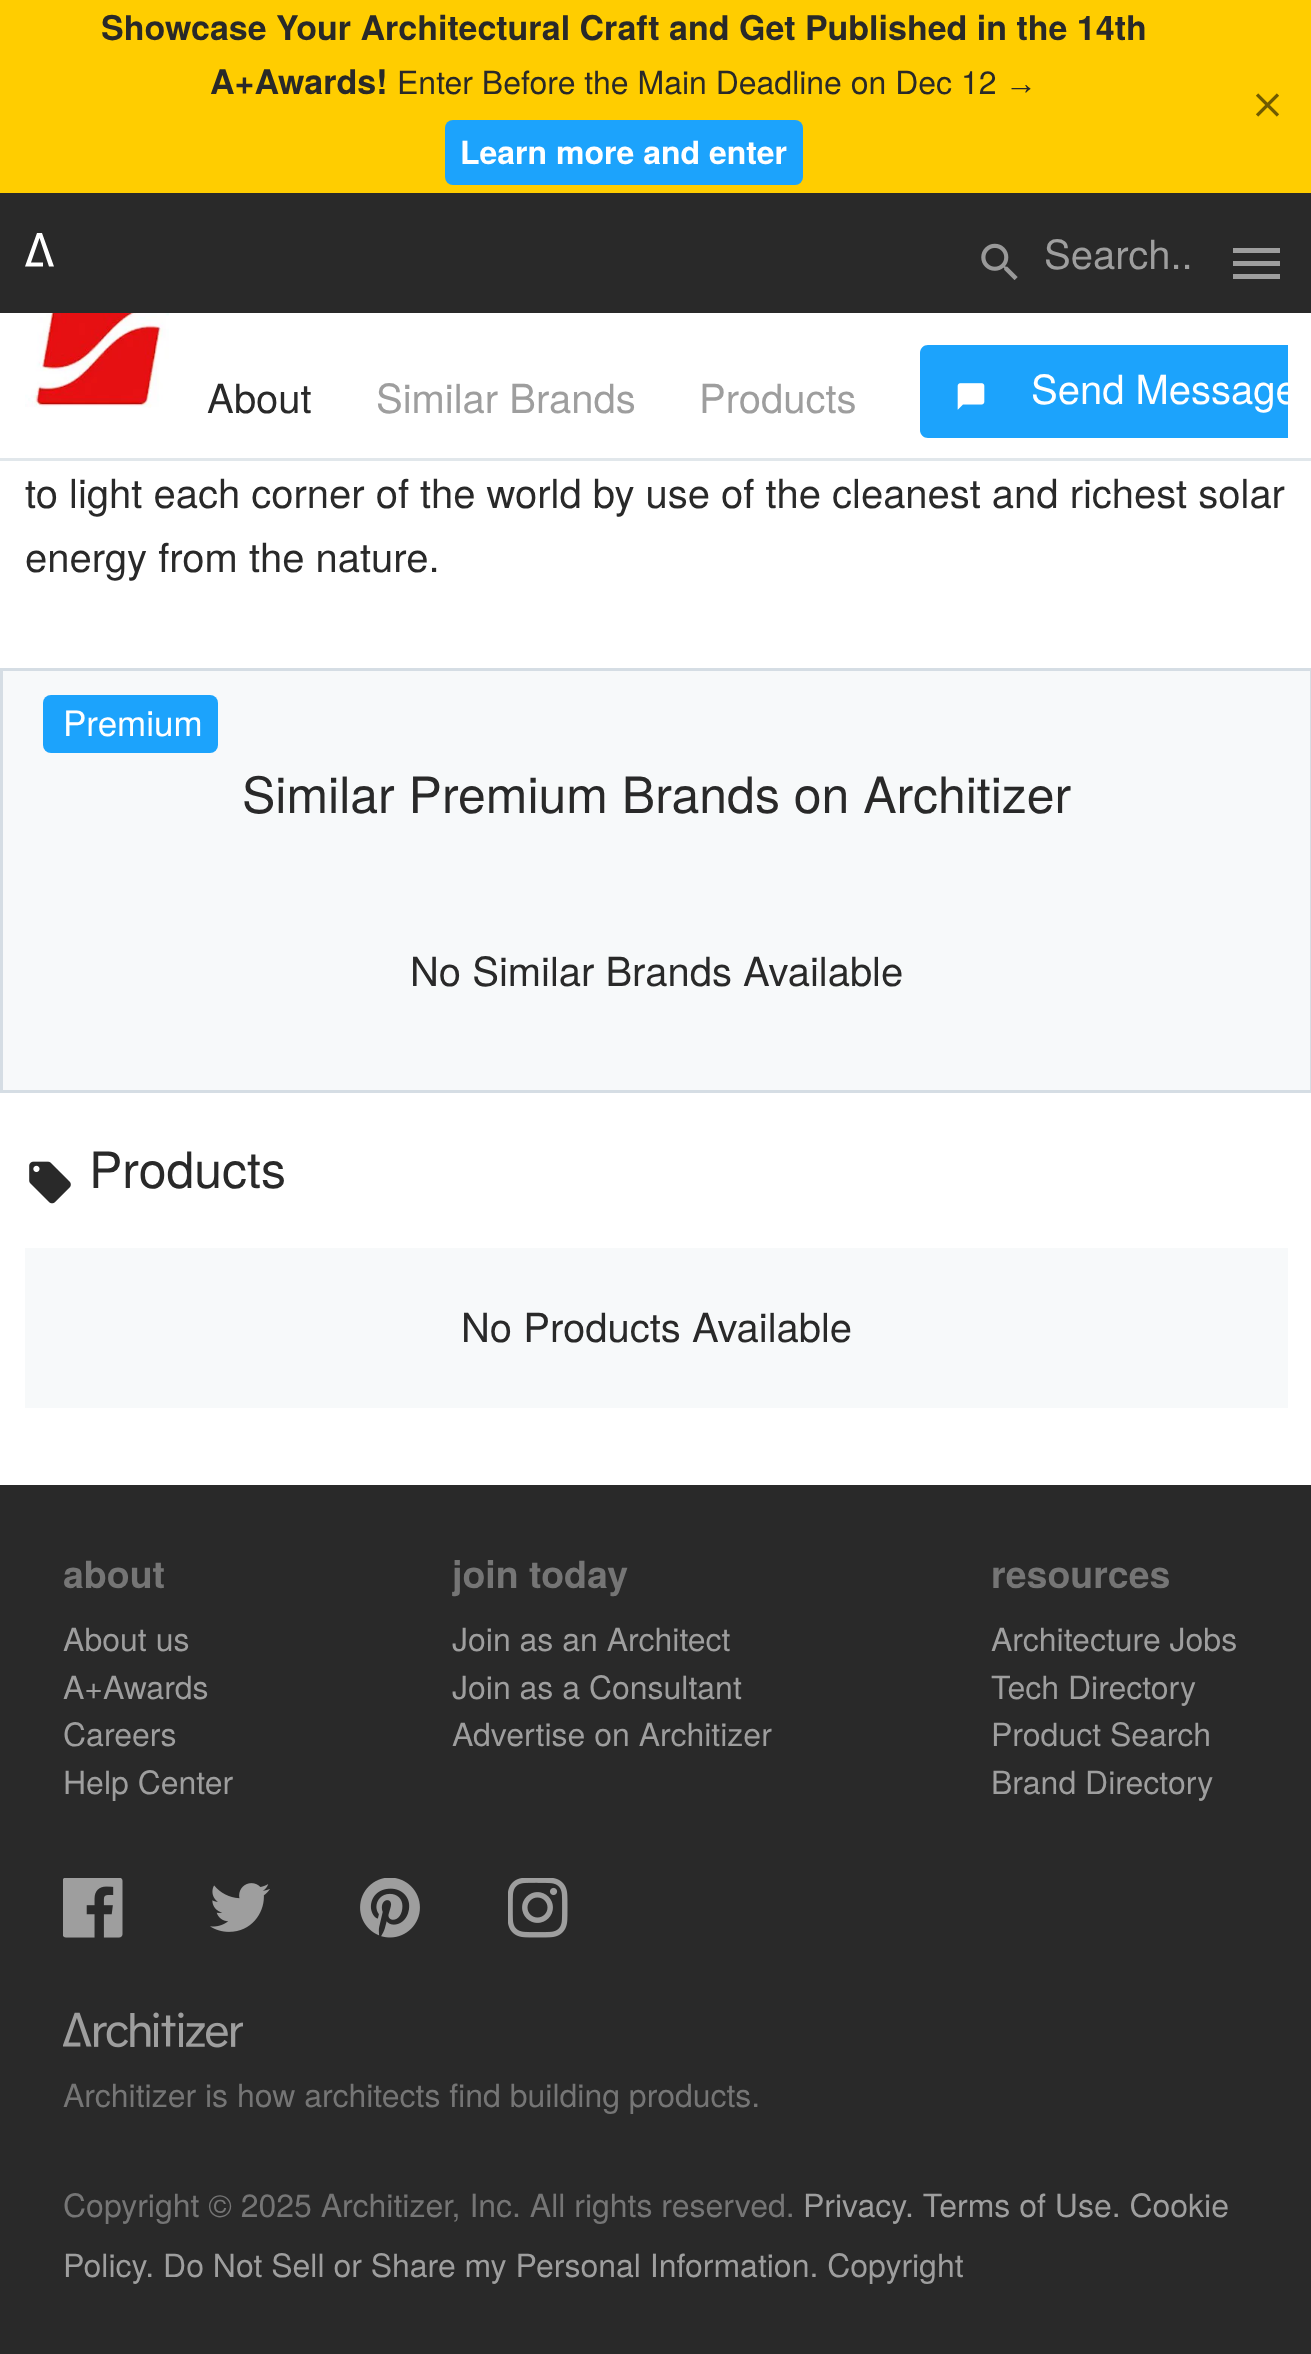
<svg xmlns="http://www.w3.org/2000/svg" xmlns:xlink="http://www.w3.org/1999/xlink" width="1311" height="2354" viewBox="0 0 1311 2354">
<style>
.cls-1{font:bold 34px TeX Gyre Heros;fill:#292929}
.cls-2{font:32px TeX Gyre Heros;fill:#292929}
.cls-3{font:32px Liberation Sans;fill:#292929}
.cls-4{font:bold 32px TeX Gyre Heros;fill:#ffffff}
.cls-5{font:40px TeX Gyre Heros;fill:#9e9e9e}
.cls-6{font:40px TeX Gyre Heros;fill:#292929}
.cls-7{font:40px TeX Gyre Heros;fill:#ffffff}
.cls-8{font:35px TeX Gyre Heros;fill:#ffffff}
.cls-9{font:50px TeX Gyre Heros;fill:#292929}
.cls-10{font:bold 37.5px TeX Gyre Heros;fill:#757575}
.cls-11{font:32px TeX Gyre Heros;fill:#9e9e9e}
.cls-12{font:32px TeX Gyre Heros;fill:#757575}
</style>
<defs>
<clipPath id="clip1"><rect x="920" y="345" width="368" height="93"/></clipPath>
</defs>
<rect width="100%" height="100%" fill="#ffffff"/>
<rect fill="#ffcd00" x="0" y="0" width="1311" height="193"/>
<rect fill="#1ca3fc" x="445" y="120" width="358" height="65" rx="8"/>
<image xlink:href="image0.png" x="1256" y="93" width="23" height="24"/>
<rect fill="#292929" x="0" y="193" width="1311" height="120"/>
<path fill="#ffffff" d="M49 266.5L39.5 238L31 262.5H43V266.5H25L37 233H42L54 266.5Z"/>
<image xlink:href="image1.png" x="981" y="243" width="37" height="37"/>
<path fill="#9e9e9e" d="M1233 248H1280V253H1233ZM1233 266V261H1280V266ZM1233 279V274H1280V279Z"/>
<rect fill="#e1e7eb" x="0" y="458" width="1311" height="3"/>
<image xlink:href="image2.png" x="25" y="313" width="144" height="95"/>
<path fill="#1ca3fc" d="M928 345H1288V438H928C923.5 438 920 434.5 920 430V353C920 348.5 923.5 345 928 345Z"/>
<image xlink:href="image3.png" x="957" y="383" width="28" height="27"/>
<rect fill="#f7f9fa" stroke="#d5dde4" stroke-width="3" x="1.5" y="669.5" width="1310" height="422"/>
<rect fill="#1ca3fc" x="43" y="695" width="175" height="58" rx="8"/>
<image xlink:href="image4.png" x="29" y="1161" width="42" height="43"/>
<rect fill="#f7f9fa" x="25" y="1248" width="1263" height="160"/>
<rect fill="#292929" x="0" y="1485" width="1311" height="869"/>
<image xlink:href="image5.png" x="63" y="1878" width="60" height="60"/>
<image xlink:href="image6.png" x="210" y="1883" width="60" height="49"/>
<image xlink:href="image7.png" x="360" y="1878" width="60" height="60"/>
<image xlink:href="image8.png" x="508" y="1878" width="60" height="60"/>
<image xlink:href="image9.png" x="63" y="2012" width="180" height="36"/>
<text class="cls-1" x="101" y="40">Showcase Your Architectural Craft and Get Published in the 14th</text>
<text class="cls-1" x="210" y="94">A+Awards!</text>
<text class="cls-2" x="397" y="94">Enter Before the Main Deadline on Dec 12</text>
<text class="cls-3" x="1005" y="94">→</text>
<text class="cls-4" x="460" y="164">Learn more and enter</text>
<text class="cls-5" x="1044" y="269">Search..</text>
<text class="cls-6" x="207" y="413">About</text>
<text class="cls-5" x="376" y="413">Similar Brands</text>
<text class="cls-5" x="699" y="413">Products</text>
<g clip-path="url(#clip1)">
<text class="cls-7" x="1031" y="404">Send Message</text>
</g>
<text class="cls-6"><tspan x="25" y="508">to light each corner of the world by use of the cleanest and richest solar</tspan><tspan x="25" y="572">energy from the nature.</tspan></text>
<text class="cls-8" x="63" y="736">Premium</text>
<text class="cls-9" x="242" y="813">Similar Premium Brands on Architizer</text>
<text class="cls-6" x="410" y="986">No Similar Brands Available</text>
<text class="cls-9" x="89" y="1188">Products</text>
<text class="cls-6" x="461" y="1342">No Products Available</text>
<text class="cls-10" x="63" y="1588">about</text>
<text class="cls-11"><tspan x="63" y="1651">About us</tspan><tspan x="63" y="1699">A+Awards</tspan><tspan x="63" y="1746">Careers</tspan><tspan x="63" y="1794">Help Center</tspan></text>
<text class="cls-10" x="452" y="1588">join today</text>
<text class="cls-11"><tspan x="452" y="1651">Join as an Architect</tspan><tspan x="452" y="1699">Join as a Consultant</tspan><tspan x="452" y="1746">Advertise on Architizer</tspan></text>
<text class="cls-10" x="991" y="1588">resources</text>
<text class="cls-11"><tspan x="991" y="1651">Architecture Jobs</tspan><tspan x="991" y="1699">Tech Directory</tspan><tspan x="991" y="1746">Product Search</tspan><tspan x="991" y="1794">Brand Directory</tspan></text>
<text class="cls-12" x="63" y="2107">Architizer is how architects find building products.</text>
<text class="cls-12" x="63" y="2217">Copyright © 2025 Architizer, Inc. All rights reserved.</text>
<text class="cls-11" x="803" y="2217">Privacy. Terms of Use. Cookie</text>
<text class="cls-11" x="63" y="2277">Policy. Do Not Sell or Share my Personal Information. Copyright</text>
</svg>
